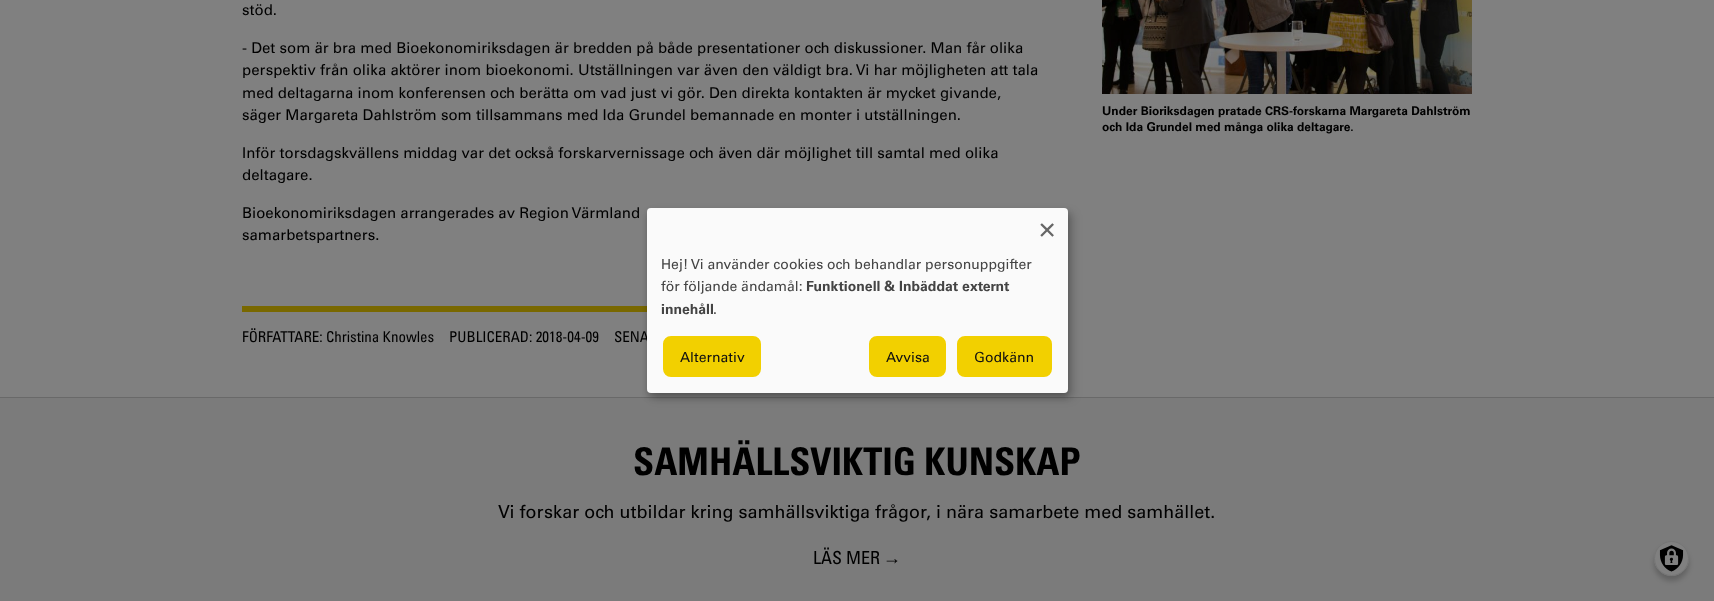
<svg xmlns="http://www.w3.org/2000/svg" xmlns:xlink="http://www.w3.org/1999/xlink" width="1714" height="601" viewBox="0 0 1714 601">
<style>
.cls-1{font:15px Univers;fill:#000000}
.cls-2{font:15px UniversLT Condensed;fill:#000000}
.cls-3{font:bold 12px Univers;fill:#000000}
.cls-4{font:bold 38px UniversLT Condensed;fill:#000000}
.cls-5{font:18px Univers;fill:#000000}
.cls-6{font:18px UniversLT Condensed;fill:#000000}
.cls-7{font:18px Liberation Sans;fill:#000000}
.cls-8{font:28px Univers;fill:#666666}
.cls-9{font:14px Univers;fill:#444444}
.cls-10{font:bold 14px Univers;fill:#444444}
.cls-11{font:14px Univers;fill:#111111}
</style>
<rect width="100%" height="100%" fill="#808080"/>
<rect fill="#796800" x="242" y="306" width="405" height="6"/>
<image xlink:href="image0.png" x="1102" y="0" width="370" height="94"/>
<rect fill="#7b7b7b" x="0" y="398" width="1714" height="203"/>
<rect fill="#696969" x="0" y="397" width="1714" height="1"/>
<rect fill="#000000" fill-opacity="0.19" filter="blur(5px)" x="652" y="213" width="421" height="185" rx="4"/>
<rect fill="#000000" fill-opacity="0.2" filter="blur(3px)" x="647" y="212" width="421" height="185" rx="4"/>
<rect fill="#000000" fill-opacity="0.2" filter="blur(2.5px)" x="1654" y="546" width="35" height="35" rx="17.5"/>
<circle fill="#808080" cx="1671.5" cy="558.5" r="17.5"/>
<image xlink:href="image1.png" x="1659" y="545" width="25" height="27"/>
<circle fill="none" stroke="#757575" cx="1671.5" cy="558.5" r="17"/>
<text class="cls-1" x="242" y="15">stöd.</text>
<text class="cls-1"><tspan x="242" y="53">- Det som är bra med Bioekonomiriksdagen är bredden på både presentationer och diskussioner. Man får olika</tspan><tspan x="242" y="75">perspektiv från olika aktörer inom bioekonomi. Utställningen var även den väldigt bra. Vi har möjligheten att tala</tspan><tspan x="242" y="98">med deltagarna inom konferensen och berätta om vad just vi gör. Den direkta kontakten är mycket givande,</tspan><tspan x="242" y="120">säger Margareta Dahlström som tillsammans med Ida Grundel bemannade en monter i utställningen.</tspan></text>
<text class="cls-1"><tspan x="242" y="158">Inför torsdagskvällens middag var det också forskarvernissage och även där möjlighet till samtal med olika</tspan><tspan x="242" y="180">deltagare.</tspan></text>
<text class="cls-1"><tspan x="242" y="218">Bioekonomiriksdagen arrangerades av Region Värmland</tspan><tspan x="242" y="240">samarbetspartners.</tspan></text>
<text class="cls-2" x="242" y="342">FÖRFATTARE: Christina Knowles</text>
<text class="cls-2" x="449" y="342">PUBLICERAD: 2018-04-09</text>
<text class="cls-2" x="614" y="342">SENA</text>
<text class="cls-3"><tspan x="1102" y="115">Under Bioriksdagen pratade CRS-forskarna Margareta Dahlström</tspan><tspan x="1102" y="131">och Ida Grundel med många olika deltagare.</tspan></text>
<text class="cls-4" x="633" y="475">SAMHÄLLSVIKTIG KUNSKAP</text>
<text class="cls-5" x="498" y="518">Vi forskar och utbildar kring samhällsviktiga frågor, i nära samarbete med samhället.</text>
<text class="cls-6" x="813" y="564">LÄS MER</text>
<text class="cls-7" x="883" y="564">→</text>
<rect fill="#fafafa" x="647" y="208" width="421" height="185" rx="4"/>
<text class="cls-8" x="1039" y="237">×</text>
<text class="cls-9"><tspan x="661" y="269">Hej! Vi använder cookies och behandlar personuppgifter</tspan><tspan x="661" y="291">för följande ändamål:</tspan></text>
<text class="cls-10" x="806" y="291">Funktionell &amp; Inbäddat externt</text>
<text class="cls-10" x="661" y="314">innehåll</text>
<text class="cls-9" x="713" y="314">.</text>
<rect fill="#f2d000" stroke="#fafafa" stroke-width="2" x="662" y="335" width="100" height="43" rx="9"/>
<text class="cls-11" x="680" y="362">Alternativ</text>
<rect fill="#f2d000" stroke="#fafafa" stroke-width="2" x="868" y="335" width="79" height="43" rx="9"/>
<text class="cls-11" x="886" y="362">Avvisa</text>
<rect fill="#f2d000" stroke="#fafafa" stroke-width="2" x="956" y="335" width="97" height="43" rx="9"/>
<text class="cls-11" x="974" y="362">Godkänn</text>
</svg>
